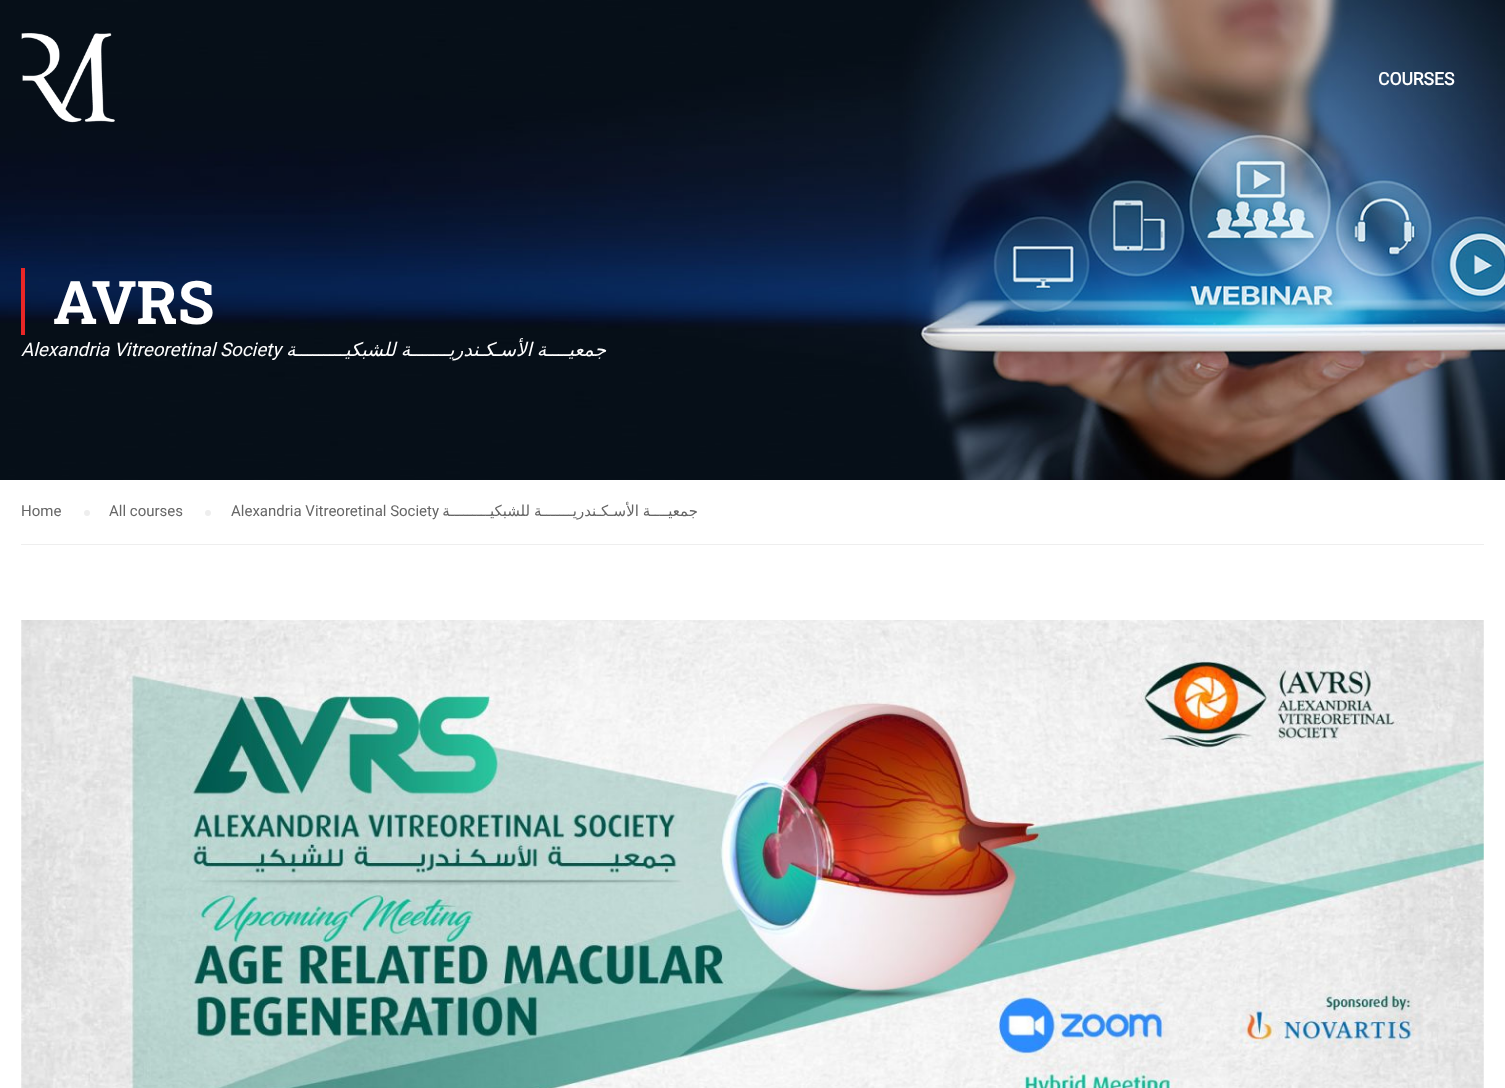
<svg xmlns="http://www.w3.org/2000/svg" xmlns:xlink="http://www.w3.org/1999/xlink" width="1505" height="1088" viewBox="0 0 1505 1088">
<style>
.cls-1{font:bold 17.5px Roboto;fill:#ffffff}
.cls-2{font:bold 60px Roboto Slab;fill:#ffffff}
.cls-3{font:italic 18.75px DejaVu Sans;direction:rtl;fill:#ffffff}
.cls-4{font:italic 18.75px Roboto;fill:#ffffff}
.cls-5{font:15px DejaVu Sans;direction:rtl;fill:#666666}
.cls-6{font:15px Roboto;fill:#666666}
</style>
<rect width="100%" height="100%" fill="#ffffff"/>
<image xlink:href="image1.png" x="0" y="0" width="1505" height="480"/>
<image xlink:href="image0.png" x="21" y="33" width="94" height="90"/>
<rect fill="#e92626" x="21" y="268" width="4" height="67"/>
<rect fill="#eeeeee" x="21" y="544" width="1463" height="1"/>
<circle fill="#eeeeee" cx="208" cy="513" r="3"/>
<circle fill="#eeeeee" cx="87" cy="513" r="3"/>
<image xlink:href="image2.png" x="21" y="620" width="1463" height="468"/>
<text class="cls-1" x="1378" y="85">COURSES</text>
<text class="cls-2" x="53" y="324">AVRS</text>
<text class="cls-3" x="606" y="356" word-spacing="-1">جمعيــــة الأسـكـندريـــــــة للشبكيـــــــــة</text>
<text class="cls-4" x="21" y="356">Alexandria Vitreoretinal Society</text>
<text class="cls-5" x="698" y="516" word-spacing="-1">جمعيــــة الأسـكـندريـــــــة للشبكيـــــــــة</text>
<text class="cls-6" x="231" y="516">Alexandria Vitreoretinal Society</text>
<text class="cls-6" x="109" y="516">All courses</text>
<text class="cls-6" x="21" y="516">Home</text>
</svg>
